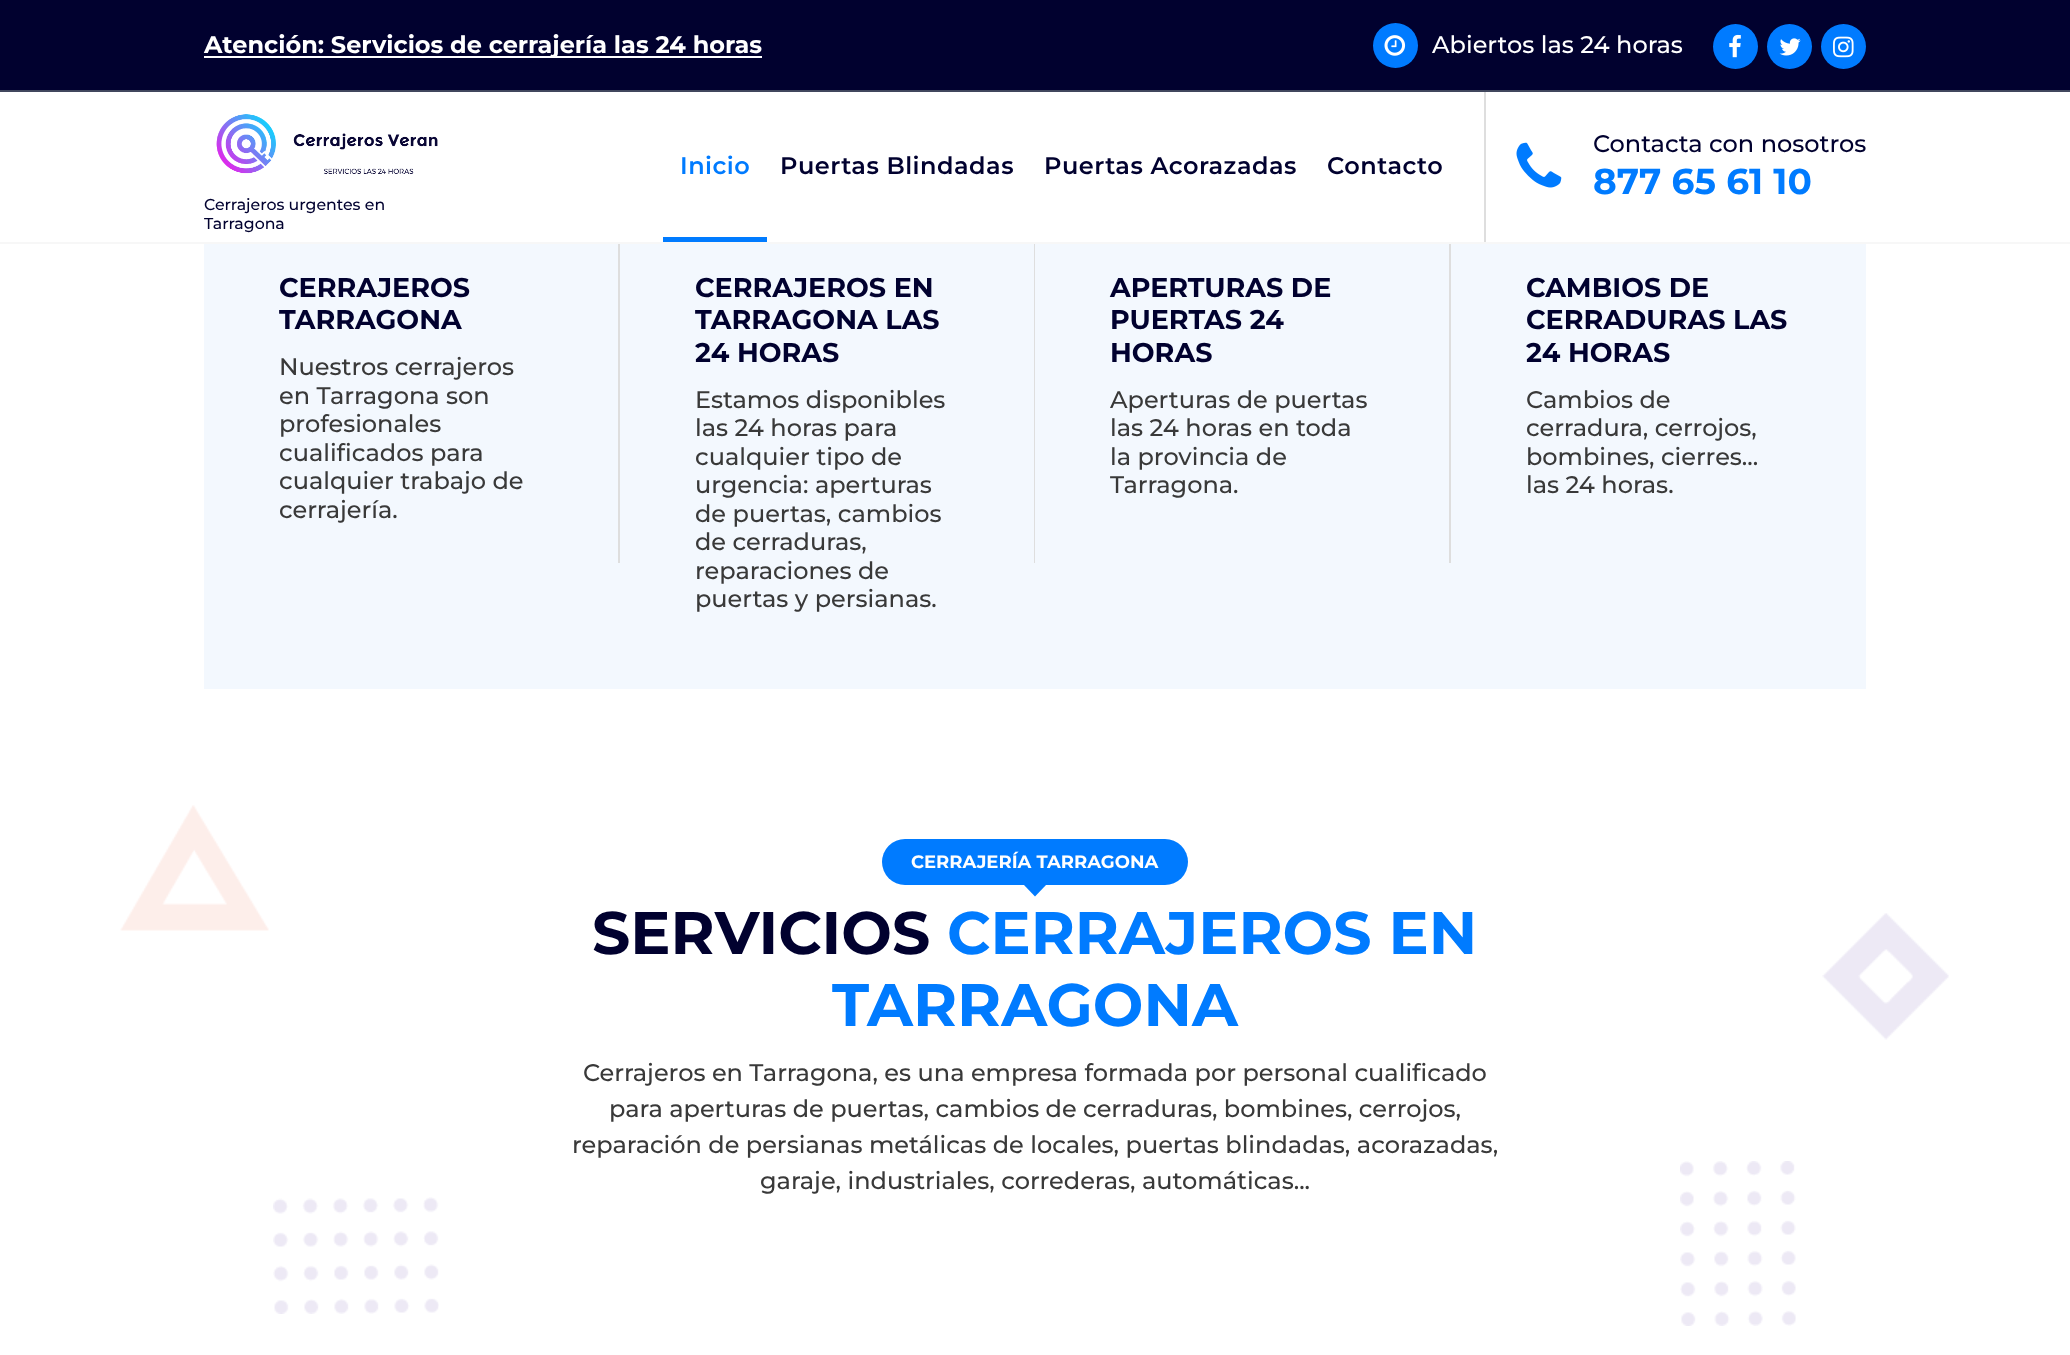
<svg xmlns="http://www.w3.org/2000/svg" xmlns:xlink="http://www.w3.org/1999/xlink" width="2070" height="1355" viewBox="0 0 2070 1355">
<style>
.cls-1{font:bold 24px Montserrat;fill:#ffffff}
.cls-2{font:500 24px Montserrat;fill:#ffffff}
.cls-3{font:600 24px Montserrat;letter-spacing:0.5px;fill:#007bff}
.cls-4{font:600 24px Montserrat;letter-spacing:0.5px;fill:#01012f}
.cls-5{font:500 24px Montserrat;fill:#01012f}
.cls-6{font:bold 36px Montserrat;fill:#007bff}
.cls-7{font:500 15.75px Montserrat;fill:#01012f}
.cls-8{font:bold 27px Montserrat;fill:#01012f}
.cls-9{font:500 24px Montserrat;fill:#393939}
.cls-10{font:bold 18px Montserrat;fill:#ffffff}
.cls-11{font:bold 60px Montserrat;fill:#01012f}
.cls-12{font:bold 60px Montserrat;fill:#007bff}
</style>
<rect width="100%" height="100%" fill="#ffffff"/>
<rect fill="#01012f" x="0" y="0" width="2070" height="90"/>
<rect fill="#41475e" x="0" y="90" width="2070" height="2"/>
<rect fill="#ffffff" x="204" y="56" width="558" height="2"/>
<circle fill="#007bff" cx="1395.5" cy="45.5" r="22.5"/>
<image xlink:href="image0.png" x="1384" y="35" width="22" height="21"/>
<circle fill="#007bff" cx="1735.5" cy="46.5" r="22.5"/>
<image xlink:href="image1.png" x="1729" y="34" width="12" height="24"/>
<circle fill="#007bff" cx="1789.5" cy="46.5" r="22.5"/>
<image xlink:href="image2.png" x="1779" y="38" width="22" height="18"/>
<circle fill="#007bff" cx="1843.5" cy="46.5" r="22.5"/>
<image xlink:href="image3.png" x="1833" y="36" width="21" height="22"/>
<rect fill="#f7f7f7" x="0" y="242" width="2070" height="2"/>
<rect fill="#007bff" x="663" y="237" width="104" height="5"/>
<rect fill="#dedede" x="1484" y="92" width="2" height="150"/>
<image xlink:href="image4.png" x="1516" y="142" width="46" height="46"/>
<image xlink:href="image5.png" x="216" y="114" width="222" height="60"/>
<rect fill="#f3f8fe" x="204" y="244" width="1662" height="445"/>
<rect fill="#dedede" x="618" y="244" width="2" height="319"/>
<rect fill="#dedede" x="1034" y="244" width="1" height="319"/>
<rect fill="#dedede" x="1449" y="244" width="2" height="319"/>
<image xlink:href="image6.png" x="120" y="805" width="149" height="126"/>
<path fill="#007bff" d="M1035 873L1046.5 884.5L1035 896.5L1023.5 884.5Z"/>
<rect fill="#007bff" x="882" y="839" width="306" height="46" rx="23"/>
<image xlink:href="image7.png" x="1822" y="913" width="127" height="127"/>
<image xlink:href="image8.png" x="273" y="1197" width="166" height="117"/>
<image xlink:href="image9.png" x="1680" y="1161" width="116" height="165"/>
<text class="cls-1" x="204" y="53">Atención: Servicios de cerrajería las 24 horas</text>
<text class="cls-2" x="1432" y="53">Abiertos las 24 horas</text>
<text class="cls-3" x="680" y="174">Inicio</text>
<text class="cls-4" x="780" y="174">Puertas Blindadas</text>
<text class="cls-4" x="1044" y="174">Puertas Acorazadas</text>
<text class="cls-4" x="1327" y="174">Contacto</text>
<text class="cls-5" x="1593" y="152">Contacta con nosotros</text>
<text class="cls-6" x="1593" y="194">877 65 61 10</text>
<text class="cls-7"><tspan x="204" y="210">Cerrajeros urgentes en</tspan><tspan x="204" y="229">Tarragona</tspan></text>
<text class="cls-8"><tspan x="279" y="297">CERRAJEROS</tspan><tspan x="279" y="329">TARRAGONA</tspan></text>
<text class="cls-9"><tspan x="279" y="375">Nuestros cerrajeros</tspan><tspan x="279" y="404">en Tarragona son</tspan><tspan x="279" y="432">profesionales</tspan><tspan x="279" y="461">cualificados para</tspan><tspan x="279" y="489">cualquier trabajo de</tspan><tspan x="279" y="518">cerrajería.</tspan></text>
<text class="cls-8"><tspan x="695" y="297">CERRAJEROS EN</tspan><tspan x="695" y="329">TARRAGONA LAS</tspan><tspan x="695" y="362">24 HORAS</tspan></text>
<text class="cls-9"><tspan x="695" y="408">Estamos disponibles</tspan><tspan x="695" y="436">las 24 horas para</tspan><tspan x="695" y="465">cualquier tipo de</tspan><tspan x="695" y="493">urgencia: aperturas</tspan><tspan x="695" y="522">de puertas, cambios</tspan><tspan x="695" y="550">de cerraduras,</tspan><tspan x="695" y="579">reparaciones de</tspan><tspan x="695" y="607">puertas y persianas.</tspan></text>
<text class="cls-8"><tspan x="1110" y="297">APERTURAS DE</tspan><tspan x="1110" y="329">PUERTAS 24</tspan><tspan x="1110" y="362">HORAS</tspan></text>
<text class="cls-9"><tspan x="1110" y="408">Aperturas de puertas</tspan><tspan x="1110" y="436">las 24 horas en toda</tspan><tspan x="1110" y="465">la provincia de</tspan><tspan x="1110" y="493">Tarragona.</tspan></text>
<text class="cls-8"><tspan x="1526" y="297">CAMBIOS DE</tspan><tspan x="1526" y="329">CERRADURAS LAS</tspan><tspan x="1526" y="362">24 HORAS</tspan></text>
<text class="cls-9"><tspan x="1526" y="408">Cambios de</tspan><tspan x="1526" y="436">cerradura, cerrojos,</tspan><tspan x="1526" y="465">bombines, cierres...</tspan><tspan x="1526" y="493">las 24 horas.</tspan></text>
<text class="cls-10" x="911" y="868">CERRAJERÍA TARRAGONA</text>
<text class="cls-11" x="592" y="954">SERVICIOS</text>
<text class="cls-12" x="947" y="954">CERRAJEROS EN</text>
<text class="cls-12" x="832" y="1026">TARRAGONA</text>
<text class="cls-9" x="583" y="1081">Cerrajeros en Tarragona, es una empresa formada por personal cualificado</text>
<text class="cls-9" x="609" y="1117">para aperturas de puertas, cambios de cerraduras, bombines, cerrojos,</text>
<text class="cls-9" x="572" y="1153">reparación de persianas metálicas de locales, puertas blindadas, acorazadas,</text>
<text class="cls-9" x="760" y="1189">garaje, industriales, correderas, automáticas...</text>
</svg>
